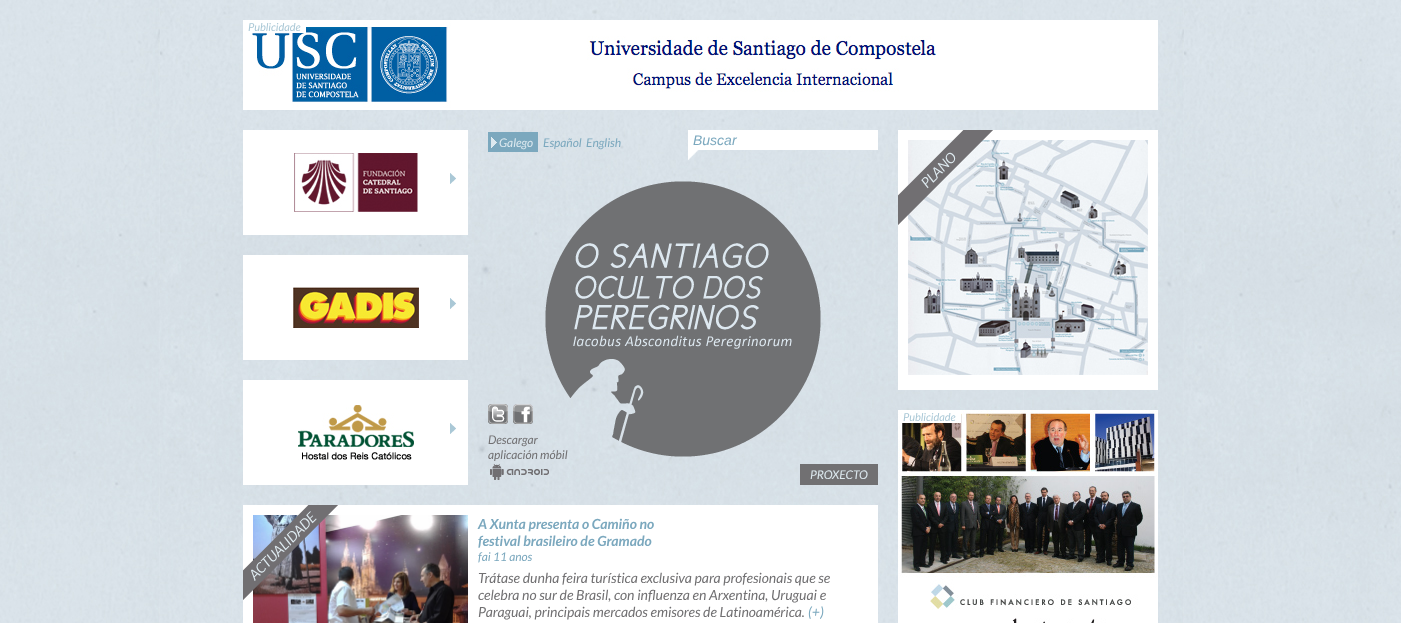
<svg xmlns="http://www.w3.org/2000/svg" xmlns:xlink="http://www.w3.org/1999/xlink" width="1401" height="623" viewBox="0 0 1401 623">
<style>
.cls-1{font:italic 11px Lato;fill:#aac8d6}
.cls-2{font:italic 12px Lato;fill:#dde9ef}
.cls-3{font:italic 12px Lato;fill:#7ba8be}
.cls-4{font:italic 14px Liberation Sans;fill:#7ba8be}
.cls-5{font:italic 12px Lato;fill:#717072}
.cls-6{font:italic bold 14px Lato;fill:#7ba8be}
.cls-7{font:italic 14px Lato;fill:#717072}
.cls-8{font:italic 14px Lato;fill:#7ba8be}
</style>
<rect width="100%" height="100%" fill="#ffffff"/>
<image xlink:href="image0.png" x="0" y="0" width="1401" height="623"/>
<image xlink:href="image1.png" x="243" y="20" width="915" height="90"/>
<rect fill="#ffffff" x="252" y="21" width="54" height="12"/>
<rect fill="#ffffff" x="243" y="130" width="225" height="105"/>
<image xlink:href="image2.png" x="294" y="153" width="124" height="59"/>
<image xlink:href="image3.png" x="450" y="173" width="6" height="11"/>
<rect fill="#ffffff" x="243" y="255" width="225" height="105"/>
<image xlink:href="image4.png" x="293" y="287" width="126" height="41"/>
<image xlink:href="image3.png" x="450" y="298" width="6" height="11"/>
<rect fill="#ffffff" x="243" y="380" width="225" height="105"/>
<image xlink:href="image5.png" x="298" y="405" width="116" height="55"/>
<image xlink:href="image3.png" x="450" y="423" width="6" height="11"/>
<rect fill="#7ba8be" x="488" y="132" width="50" height="20"/>
<image xlink:href="image6.png" x="491" y="137" width="6" height="11"/>
<rect fill="#ffffff" x="688" y="130" width="190" height="20"/>
<image xlink:href="image7.png" x="688" y="150" width="11" height="10"/>
<image xlink:href="image8.png" x="488" y="404" width="20" height="20"/>
<image xlink:href="image9.png" x="513" y="404" width="20" height="20"/>
<image xlink:href="image10.png" x="490" y="464" width="59" height="16"/>
<image xlink:href="image11.png" x="545" y="181" width="276" height="276"/>
<rect fill="#717072" x="800" y="464" width="78" height="21"/>
<rect fill="#ffffff" x="243" y="505" width="635" height="118"/>
<image xlink:href="image13.png" x="253" y="515" width="215" height="108"/>
<image xlink:href="image12.png" x="243" y="505" width="95" height="95"/>
<rect fill="#ffffff" x="898" y="130" width="260" height="260"/>
<image xlink:href="image15.png" x="908" y="140" width="240" height="235"/>
<image xlink:href="image14.png" x="898" y="130" width="95" height="95"/>
<image xlink:href="image16.png" x="898" y="410" width="260" height="213"/>
<rect fill="#ffffff" x="902" y="410" width="59" height="13"/>
<text class="cls-1" x="248" y="31">Publicidade</text>
<text class="cls-2" x="499" y="147">Galego</text>
<text class="cls-3" x="543" y="147">Español</text>
<text class="cls-3" x="586" y="147">English</text>
<text class="cls-4" x="693" y="145">Buscar</text>
<text class="cls-5"><tspan x="488" y="444">Descargar</tspan><tspan x="488" y="459">aplicación móbil</tspan></text>
<text class="cls-2" x="810" y="479">PROXECTO</text>
<text class="cls-6"><tspan x="478" y="529">A Xunta presenta o Camiño no</tspan><tspan x="478" y="546">festival brasileiro de Gramado</tspan></text>
<text class="cls-3" x="478" y="561">fai 11 anos</text>
<text class="cls-7"><tspan x="478" y="583">Trátase dunha feira turística exclusiva para profesionais que se</tspan><tspan x="478" y="600">celebra no sur de Brasil, con influenza en Arxentina, Uruguai e</tspan><tspan x="478" y="617">Paraguai, principais mercados emisores de Latinoamérica.</tspan></text>
<text class="cls-8" x="808" y="617">(+)</text>
<text class="cls-1" x="903" y="421">Publicidade</text>
</svg>
